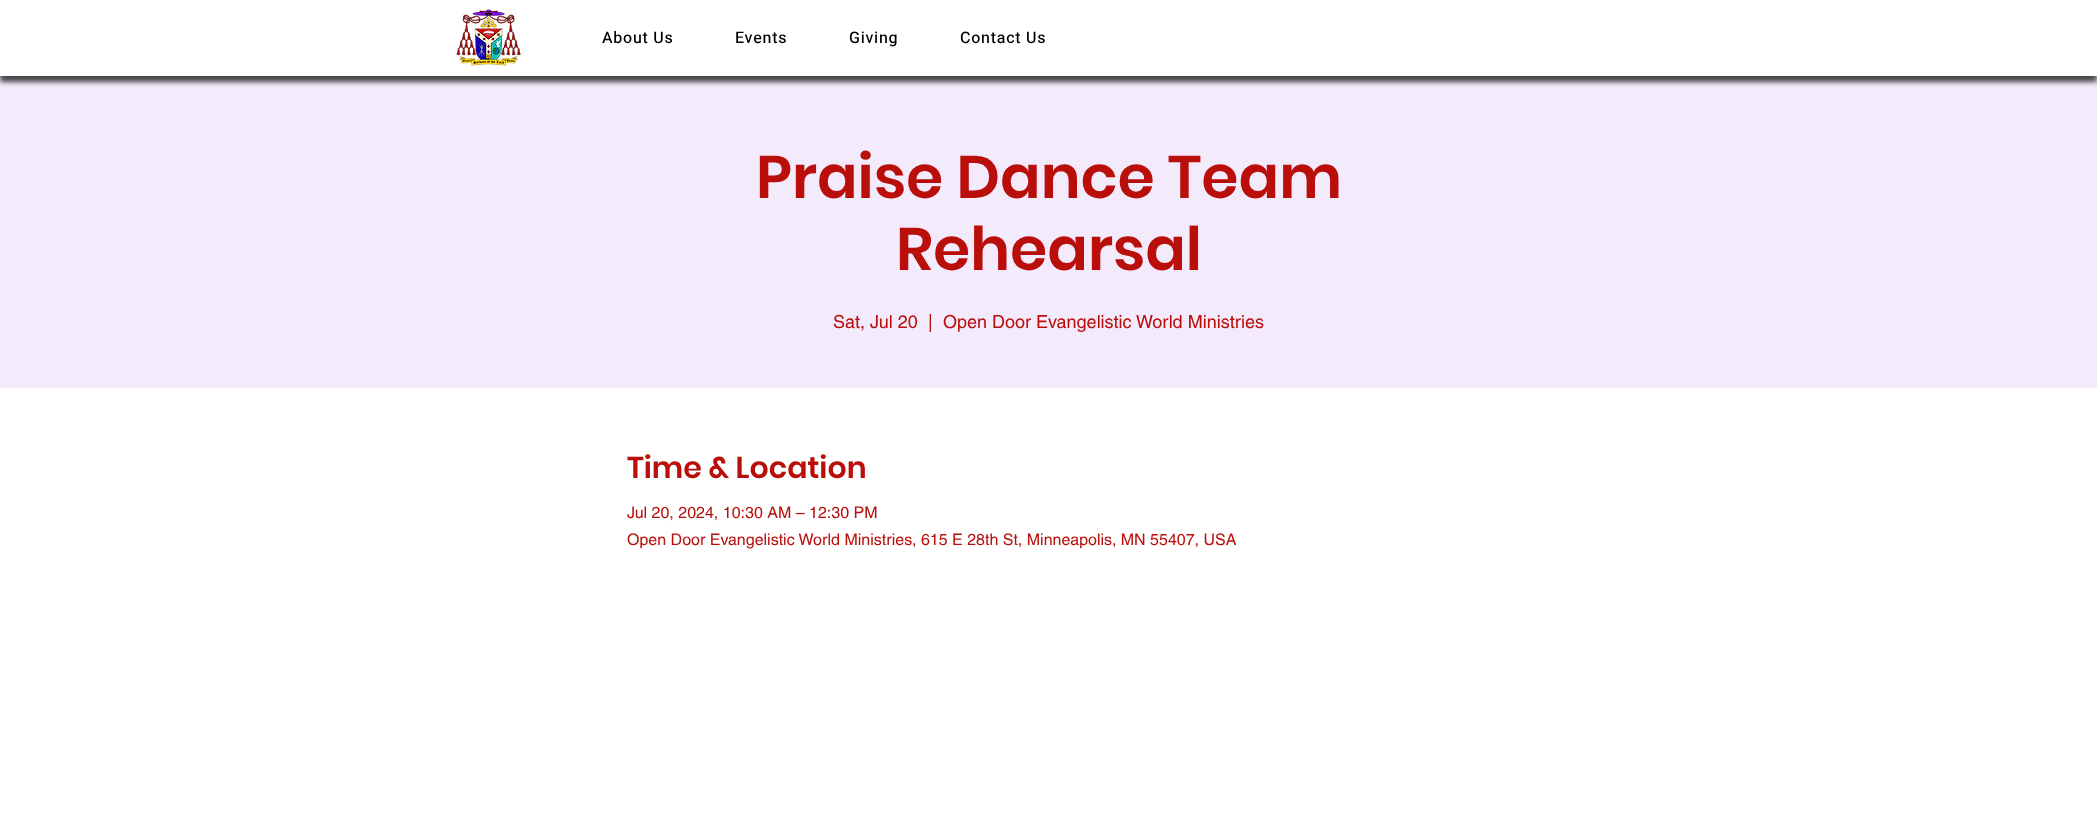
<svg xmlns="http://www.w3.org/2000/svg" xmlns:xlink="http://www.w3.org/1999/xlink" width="2097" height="815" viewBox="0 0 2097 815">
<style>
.cls-1{font:500 16px Heebo;letter-spacing:0.75px;fill:#000000}
.cls-2{font:600 60px Poppins;fill:#b90e0a}
.cls-3{font:18px helvetica;fill:#b90e0a}
.cls-4{font:600 30px Poppins;fill:#b90e0a}
.cls-5{font:16px helvetica;fill:#b90e0a}
</style>
<rect width="100%" height="100%" fill="#ffffff"/>
<rect fill="#f3eafb" x="0" y="76" width="2097" height="312"/>
<rect fill="#000000" fill-opacity="0.7" filter="blur(2.5px)" x="0" y="6" width="2097" height="76"/>
<rect fill="#ffffff" x="0" y="1" width="2097" height="75"/>
<image xlink:href="image0.png" x="456" y="9" width="65" height="57"/>
<text class="cls-1" x="602" y="43">About Us</text>
<text class="cls-1" x="735" y="43">Events</text>
<text class="cls-1" x="849" y="43">Giving</text>
<text class="cls-1" x="960" y="43">Contact Us</text>
<text class="cls-2" x="756" y="198">Praise Dance Team</text>
<text class="cls-2" x="896" y="270">Rehearsal</text>
<text class="cls-3" x="833" y="328">Sat, Jul 20</text>
<text class="cls-3" x="928" y="328">|</text>
<text class="cls-3" x="943" y="328">Open Door Evangelistic World Ministries</text>
<text class="cls-4" x="627" y="478">Time &amp; Location</text>
<text class="cls-5"><tspan x="627" y="518">Jul 20, 2024, 10:30 AM – 12:30 PM</tspan><tspan x="627" y="545">Open Door Evangelistic World Ministries, 615 E 28th St, Minneapolis, MN 55407, USA</tspan></text>
</svg>
